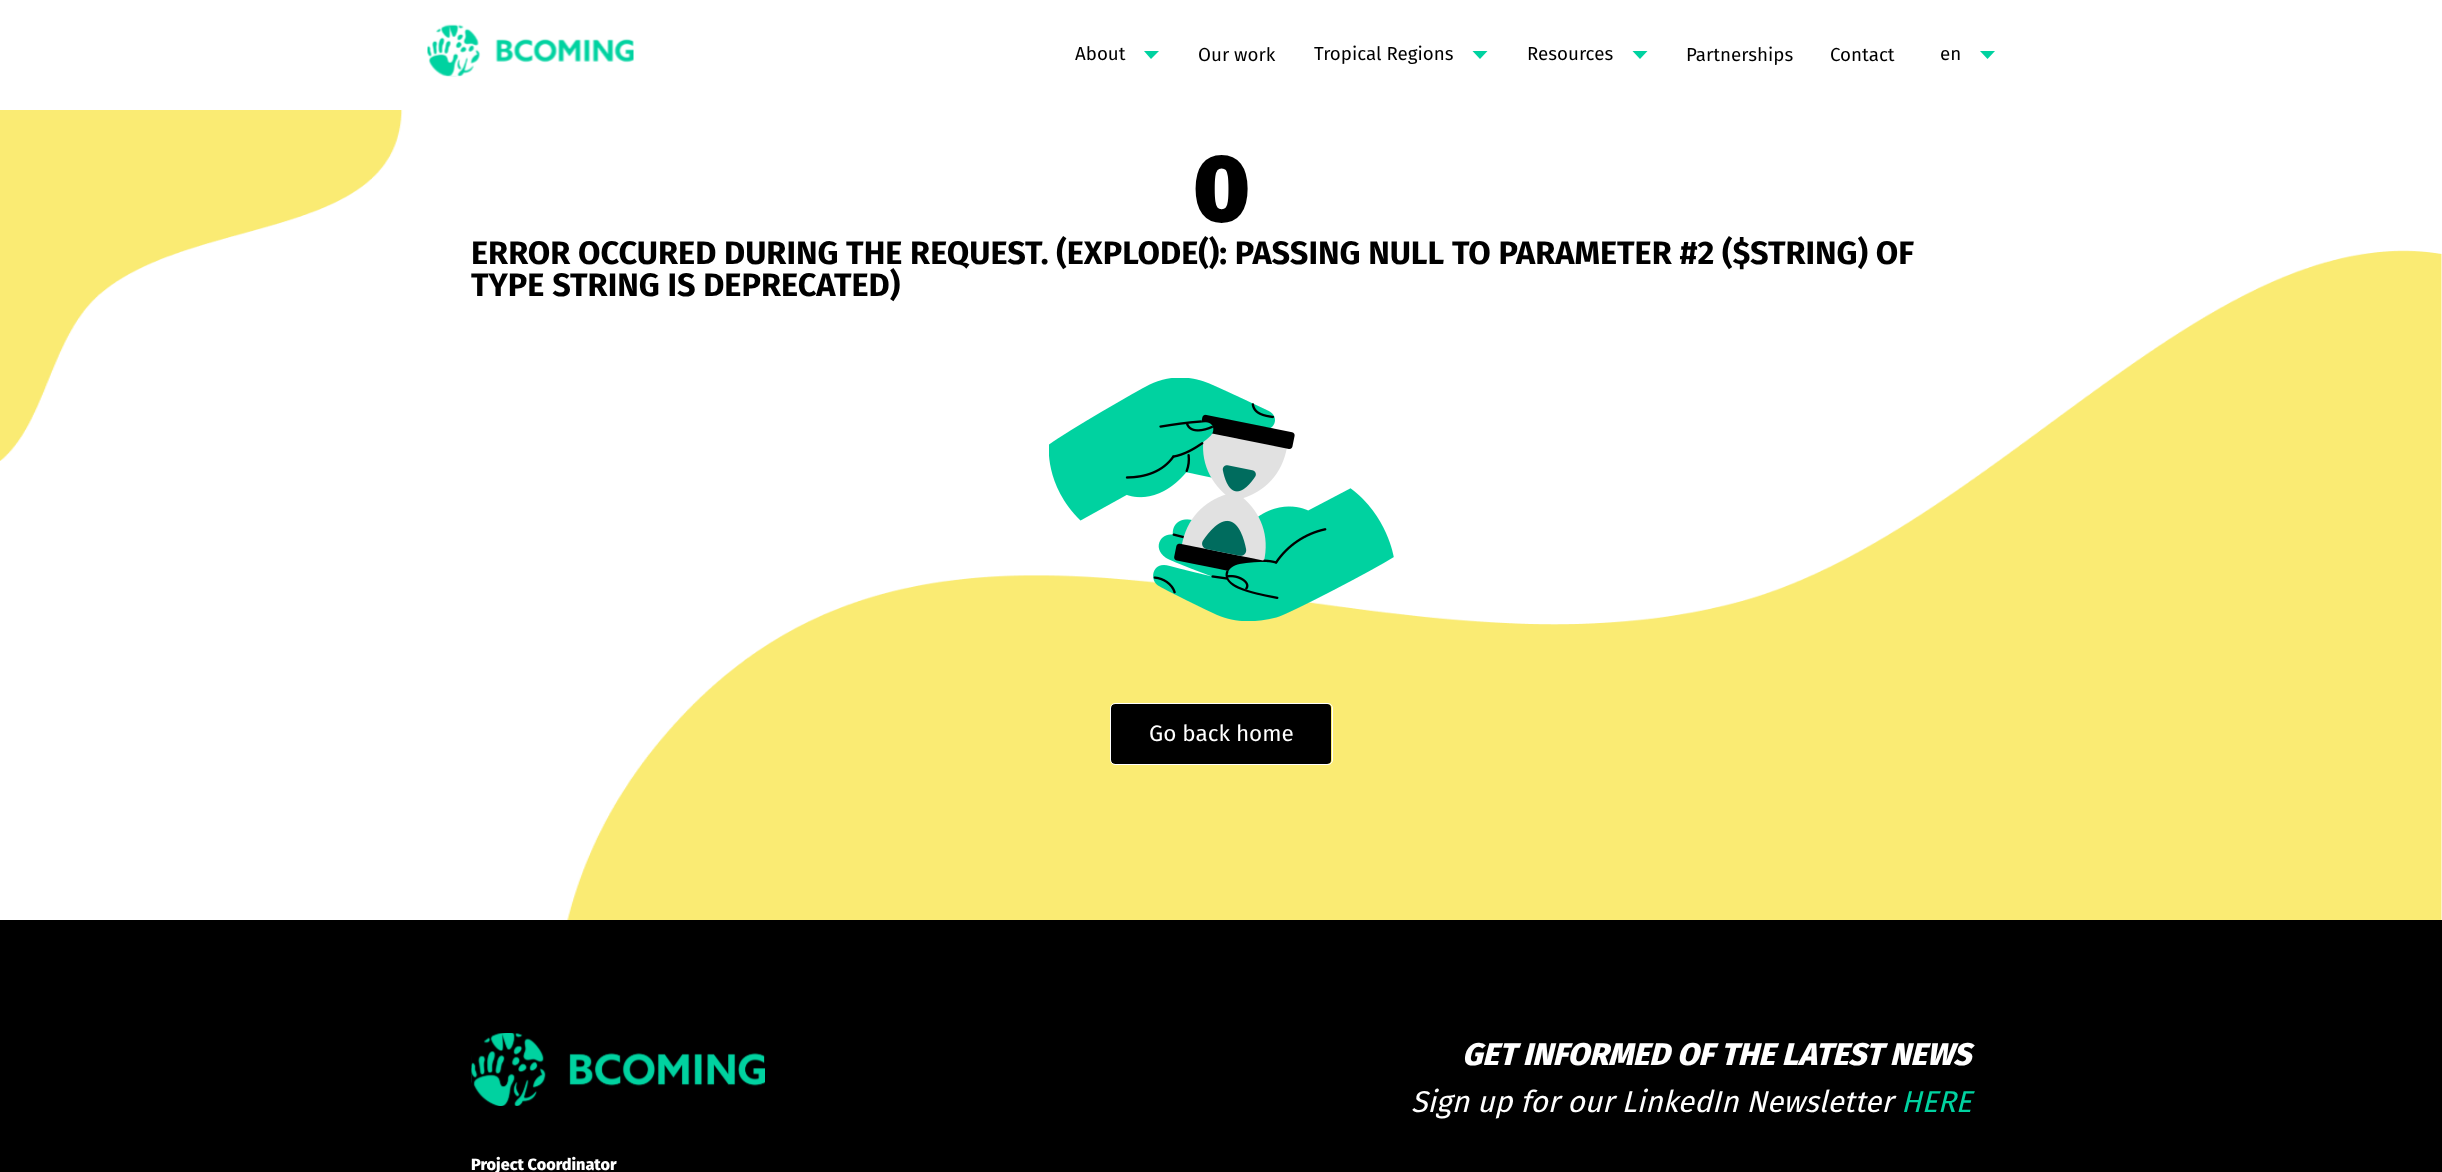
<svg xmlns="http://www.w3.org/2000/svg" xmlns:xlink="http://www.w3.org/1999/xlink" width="2442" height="1172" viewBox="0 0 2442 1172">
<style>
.cls-1{font:18.75px Fira Sans;fill:#000000}
.cls-2{font:900 95px Fira Sans;fill:#000000}
.cls-3{font:bold 32.5px Fira Sans;fill:#000000}
.cls-4{font:22.5px Fira Sans;fill:#ffffff}
.cls-5{font:italic 800 31.25px Fira Sans;fill:#ffffff}
.cls-6{font:italic 30px Fira Sans;fill:#ffffff}
.cls-7{font:italic 30px Fira Sans;fill:#00d2a0}
.cls-8{font:800 16.25px Fira Sans;fill:#ffffff}
</style>
<rect width="100%" height="100%" fill="#ffffff"/>
<image xlink:href="image0.png" x="427" y="24" width="207" height="53"/>
<path fill="#00d2a0" d="M1144 51H1159L1151 59Z"/>
<path fill="#00d2a0" d="M1472.5 51H1487.5L1480 59Z"/>
<path fill="#00d2a0" d="M1632.5 51H1647.5L1640 59Z"/>
<path fill="#00d2a0" d="M1980 51H1995L1987.5 59Z"/>
<image xlink:href="image1.png" x="0" y="110" width="2442" height="810"/>
<image xlink:href="image2.png" x="1049" y="378" width="345" height="243"/>
<rect fill="#000000" x="1111" y="704" width="220" height="60" rx="4"/>
<rect fill="none" stroke="#ffffff" x="1110.5" y="703.5" width="222" height="61" rx="4.5"/>
<rect fill="#000000" x="0" y="920" width="2442" height="252"/>
<image xlink:href="image3.png" x="471" y="1033" width="294" height="73"/>
<text class="cls-1" x="1075" y="60">About</text>
<text class="cls-1" x="1198" y="61">Our work</text>
<text class="cls-1" x="1314" y="60">Tropical Regions</text>
<text class="cls-1" x="1527" y="60">Resources</text>
<text class="cls-1" x="1686" y="61">Partnerships</text>
<text class="cls-1" x="1830" y="61">Contact</text>
<text class="cls-1" x="1940" y="60">en</text>
<text class="cls-2" x="1193" y="221">0</text>
<text class="cls-3"><tspan x="471" y="264">ERROR OCCURED DURING THE REQUEST. (EXPLODE(): PASSING NULL TO PARAMETER #2 ($STRING) OF</tspan><tspan x="471" y="296">TYPE STRING IS DEPRECATED)</tspan></text>
<text class="cls-4" x="1149" y="741">Go back home</text>
<text class="cls-5" x="1462" y="1065">GET INFORMED OF THE LATEST NEWS</text>
<text class="cls-6" x="1411" y="1112">Sign up for our LinkedIn Newsletter</text>
<text class="cls-7" x="1901" y="1112">HERE</text>
<text class="cls-8" x="471" y="1170">Project Coordinator</text>
</svg>
